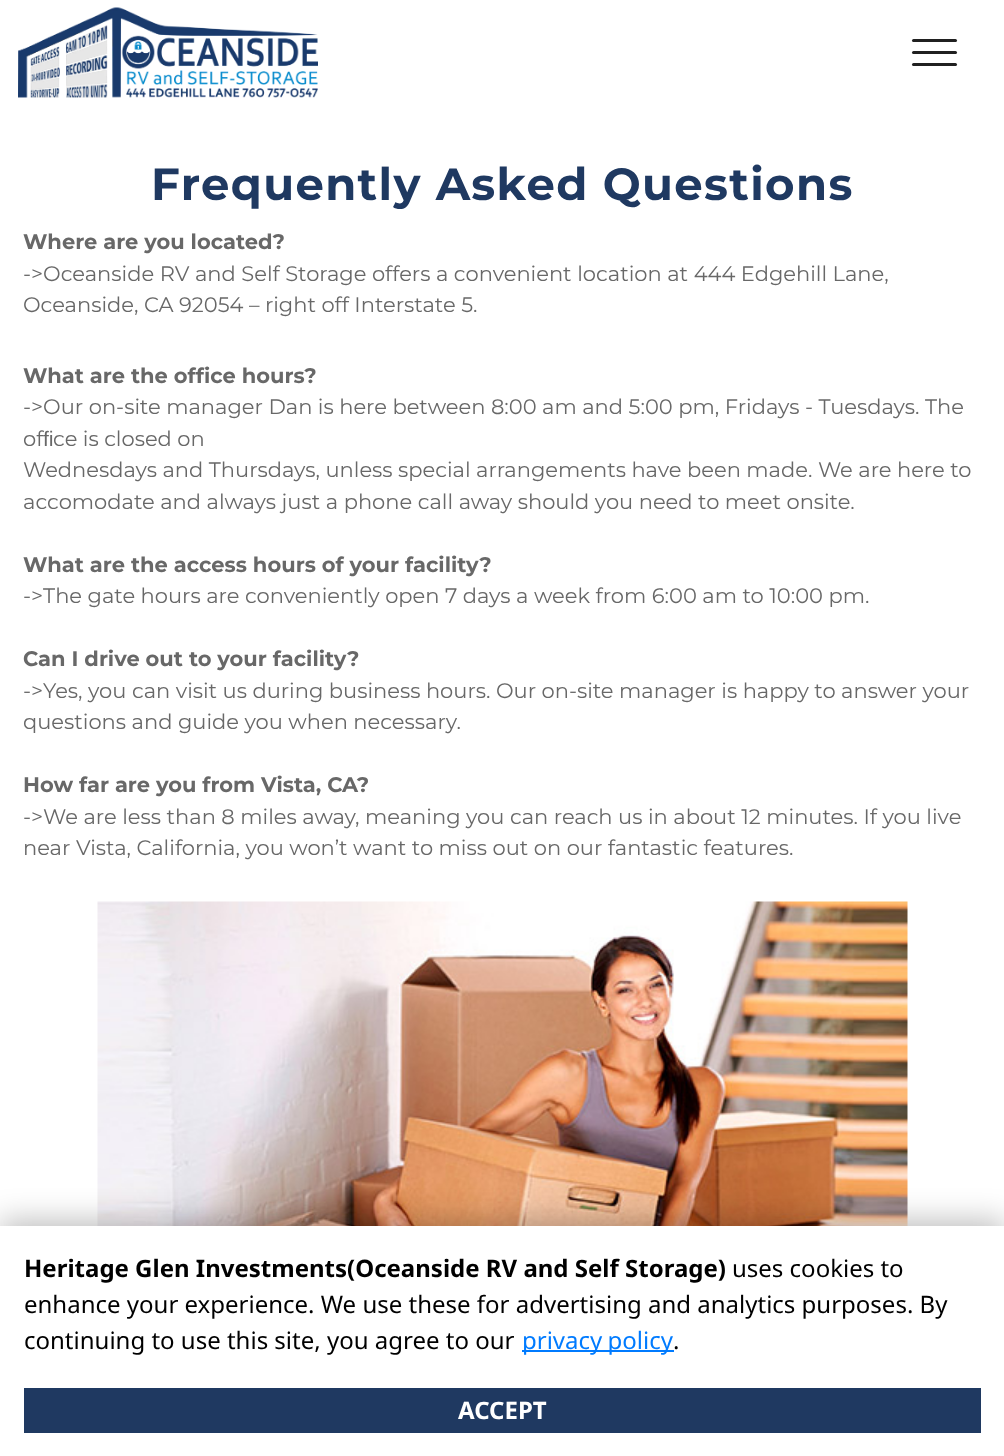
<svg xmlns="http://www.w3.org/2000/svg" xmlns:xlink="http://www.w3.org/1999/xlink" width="1004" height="1456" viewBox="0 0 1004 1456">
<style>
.cls-1{font:bold 45px Montserrat;letter-spacing:1.35px;fill:#1f3961}
.cls-2{font:bold 21px Montserrat;fill:#686868}
.cls-3{font:21px Montserrat;fill:#686868}
.cls-4{font:21px Liberation Sans;fill:#686868}
.cls-5{font:bold 24px Noto Sans;fill:#000000}
.cls-6{font:24px Noto Sans;fill:#000000}
.cls-7{font:24px Noto Sans;fill:#007bff}
.cls-8{font:bold 24px Noto Sans;fill:#ffffff}
</style>
<rect width="100%" height="100%" fill="#ffffff"/>
<image xlink:href="image0.png" x="18" y="7" width="300" height="91"/>
<rect fill="#202020" x="912" y="39" width="45" height="3" rx="1.5"/>
<rect fill="#202020" x="912" y="51" width="45" height="3" rx="1.5"/>
<rect fill="#202020" x="912" y="63" width="45" height="3" rx="1.5"/>
<image xlink:href="image1.png" x="97" y="901" width="811" height="325"/>
<rect fill="#000000" fill-opacity="0.25" filter="blur(15px)" x="0" y="1220" width="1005" height="231"/>
<rect fill="#ffffff" x="0" y="1226" width="1004" height="230"/>
<rect fill="#007bff" x="522" y="1350" width="152" height="2"/>
<rect fill="#1f3961" x="24" y="1388" width="957" height="45"/>
<text class="cls-1" x="151" y="200">Frequently Asked Questions</text>
<text class="cls-2" x="23" y="249">Where are you located?</text>
<text class="cls-3"><tspan x="23" y="281">-&gt;Oceanside RV and Self Storage offers a convenient location at 444 Edgehill Lane,</tspan><tspan x="23" y="312">Oceanside, CA 92054 – right off Interstate 5.</tspan></text>
<text class="cls-2" x="23" y="383">What are the office hours?</text>
<text class="cls-3"><tspan x="23" y="414">-&gt;Our on-site manager Dan is here between 8:00 am and 5:00 pm, Fridays - Tuesdays. The</tspan><tspan x="23" y="446">of</tspan></text>
<text class="cls-4" x="43" y="446">ﬁ</text>
<text class="cls-3" x="53" y="446">ce is closed on</text>
<text class="cls-3"><tspan x="23" y="477">Wednesdays and Thursdays, unless special arrangements have been made. We are here to</tspan><tspan x="23" y="509">accomodate and always just a phone call away should you need to meet onsite.</tspan></text>
<text class="cls-2" x="23" y="572">What are the access hours of your facility?</text>
<text class="cls-3" x="23" y="603">-&gt;The gate hours are conveniently open 7 days a week from 6:00 am to 10:00 pm.</text>
<text class="cls-2" x="23" y="666">Can I drive out to your facility?</text>
<text class="cls-3"><tspan x="23" y="698">-&gt;Yes, you can visit us during business hours. Our on-site manager is happy to answer your</tspan><tspan x="23" y="729">questions and guide you when necessary.</tspan></text>
<text class="cls-2" x="23" y="792">How far are you from Vista, CA?</text>
<text class="cls-3"><tspan x="23" y="824">-&gt;We are less than 8 miles away, meaning you can reach us in about 12 minutes. If you live</tspan><tspan x="23" y="855">near Vista, California, you won’t want to miss out on our fantastic features.</tspan></text>
<text class="cls-5" x="24" y="1277">Heritage Glen Investments(Oceanside RV and Self Storage)</text>
<text class="cls-6" x="732" y="1277">uses cookies to</text>
<text class="cls-6"><tspan x="24" y="1313">enhance your experience. We use these for advertising and analytics purposes. By</tspan><tspan x="24" y="1349">continuing to use this site, you agree to our</tspan></text>
<text class="cls-7" x="522" y="1349" word-spacing="-1">privacy policy</text>
<text class="cls-6" x="673" y="1349">.</text>
<text class="cls-8" x="458" y="1419">ACCEPT</text>
</svg>
